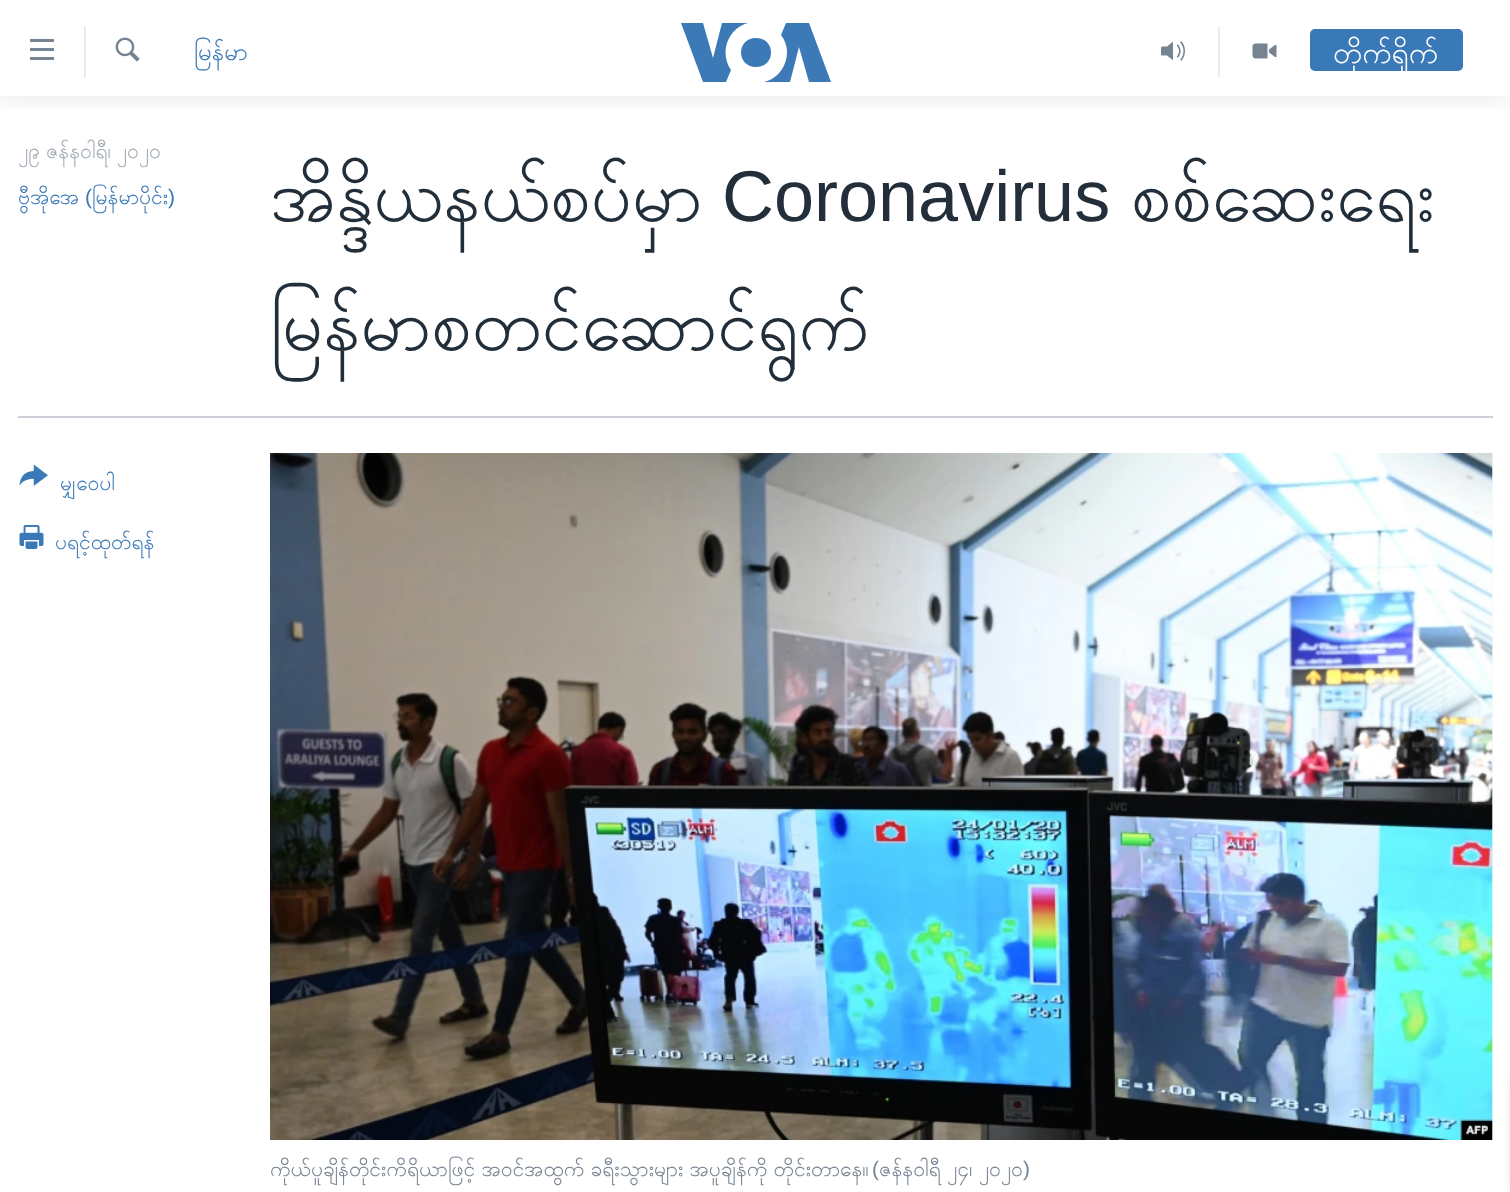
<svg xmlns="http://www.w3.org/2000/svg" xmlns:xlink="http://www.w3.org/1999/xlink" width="1510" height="1192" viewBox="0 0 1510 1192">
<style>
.cls-1{font:24px Padauk;fill:#3a79b7}
.cls-2{font:30px Padauk;fill:#ffffff}
.cls-3{font:21px Padauk;fill:#a1aab4}
.cls-4{font:21px Padauk;fill:#3a79b7}
.cls-5{font:21px Liberation Sans;fill:#3a79b7}
.cls-6{font:72px Padauk;fill:#222f3a}
.cls-7{font:72px Liberation Sans;fill:#222f3a}
.cls-8{font:21px Padauk;fill:#768492}
.cls-9{font:21px Liberation Sans;fill:#768492}
</style>
<defs>
<clipPath id="clip1"><rect x="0" y="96" width="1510" height="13"/></clipPath>
</defs>
<rect width="100%" height="100%" fill="#ffffff"/>
<g clip-path="url(#clip1)">
<rect fill="#000000" fill-opacity="0.1" filter="blur(15px)" x="0" y="0" width="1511" height="96"/>
</g>
<image xlink:href="image0.png" x="30" y="39" width="24" height="21"/>
<rect fill="#ebebeb" x="84" y="26" width="2" height="52"/>
<image xlink:href="image1.png" x="115" y="37" width="25" height="25"/>
<path fill="#3b79b7" d="M731 70L726 82H703L681 23H703L713 58L722 23H748C728 28 719 53 731 70ZM756 38C736 38 736 67 756 67C776 67 776 38 756 38ZM787 52C787 67 777 79 764 82H790L799 47L809 82H831L809 23H786L781 35C785 40 787 46 787 52Z"/>
<rect fill="#ebebeb" x="1218" y="27" width="2" height="50"/>
<image xlink:href="image2.png" x="1161" y="41" width="24" height="20"/>
<image xlink:href="image3.png" x="1252" y="43" width="25" height="16"/>
<rect fill="#3a79b7" x="1310" y="29" width="153" height="42" rx="5"/>
<rect fill="#cbd1d6" x="18" y="416" width="1475" height="2"/>
<image xlink:href="image4.png" x="19" y="464" width="29" height="22"/>
<image xlink:href="image5.png" x="19" y="525" width="25" height="24"/>
<rect fill="#f6f7f8" x="1492" y="453" width="1" height="687"/>
<image xlink:href="image6.png" x="270" y="453" width="1223" height="687"/>
<rect fill="#000000" fill-opacity="0.85" filter="blur(7.5px)" x="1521" y="1076" width="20" height="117" rx="8"/>
<text class="cls-1" x="194" y="60">မြန်မာ</text>
<text class="cls-2" x="1333" y="63">တိုက်ရိုက်</text>
<text class="cls-3" x="18" y="158" word-spacing="-2">၂၉ ဇန်နဝါရီ၊ ၂၀၂၀</text>
<text class="cls-4" x="18" y="204">ဗွီအိုအေ</text>
<text class="cls-5" x="85" y="204">(</text>
<text class="cls-4" x="92" y="204">မြန်မာပိုင်း</text>
<text class="cls-5" x="168" y="204">)</text>
<text class="cls-6" x="270" y="221">အိန္ဒိယနယ်စပ်မှာ</text>
<text class="cls-7" x="722" y="221">Coronavirus</text>
<text class="cls-6" x="1131" y="221">စစ်ဆေးရေး</text>
<text class="cls-6" x="270" y="350">မြန်မာစတင်ဆောင်ရွက်</text>
<text class="cls-4" x="60" y="490">မျှဝေပါ</text>
<text class="cls-4" x="55" y="549">ပရင့်ထုတ်ရန်</text>
<text class="cls-8" x="270" y="1176" word-spacing="-1.5">ကိုယ်ပူချိန်တိုင်းကိရိယာဖြင့် အဝင်အထွက် ခရီးသွားများ အပူချိန်ကို တိုင်းတာနေ။</text>
<text class="cls-9" x="872" y="1176">(</text>
<text class="cls-8" x="879" y="1176" word-spacing="-1.5">ဇန်နဝါရီ ၂၄၊ ၂၀၂၀</text>
<text class="cls-9" x="1023" y="1176">)</text>
</svg>
